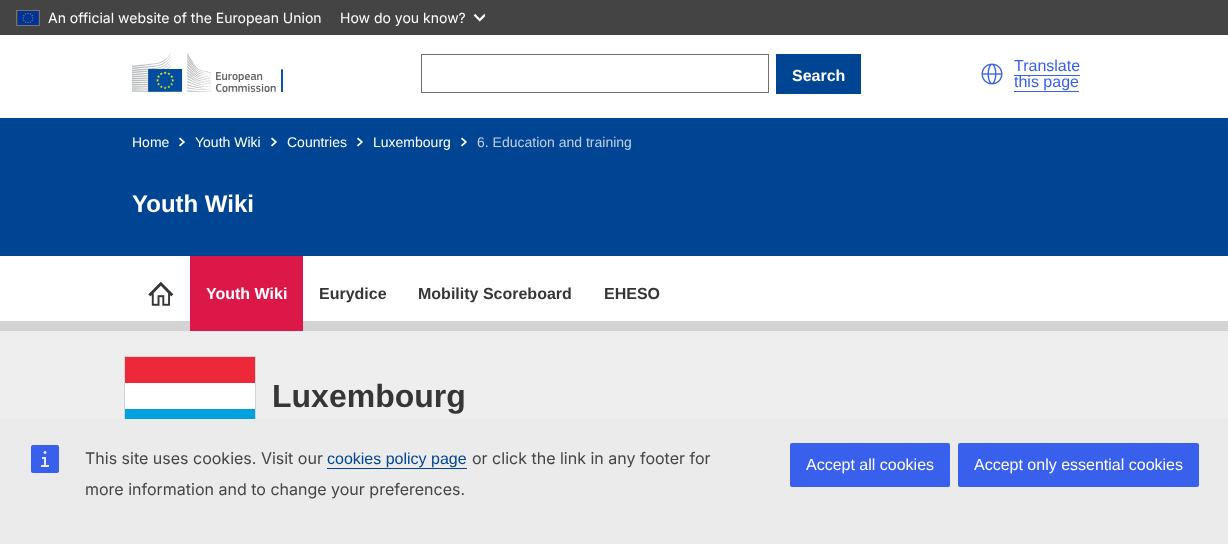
<svg xmlns="http://www.w3.org/2000/svg" xmlns:xlink="http://www.w3.org/1999/xlink" width="1228" height="544" viewBox="0 0 1228 544">
<style>
.cls-1{font:14px Inter;fill:#ffffff}
.cls-2{font:bold 16px Liberation Sans;fill:#ffffff}
.cls-3{font:16px Liberation Sans;fill:#3860ed}
.cls-4{font:14px Liberation Sans;fill:#ffffff}
.cls-5{font:14px Liberation Sans;fill:#bfd0e4}
.cls-6{font:bold 24px Liberation Sans;fill:#ffffff}
.cls-7{font:bold 16px Liberation Sans;fill:#363636}
.cls-8{font:bold 32px Liberation Sans;fill:#363636}
.cls-9{font:16px Inter;fill:#444444}
.cls-10{font:16px Liberation Sans;fill:#004494}
.cls-11{font:16px Liberation Sans;fill:#ffffff}
</style>
<rect width="100%" height="100%" fill="#ffffff"/>
<rect fill="#444444" x="0" y="0" width="1228" height="35"/>
<rect fill="none" stroke="#737373" x="16.5" y="10.5" width="23" height="15"/>
<image xlink:href="image0.png" x="18" y="11" width="21" height="14"/>
<image xlink:href="image1.png" x="473" y="14" width="12" height="8"/>
<image xlink:href="image2.png" x="132" y="53" width="151" height="39"/>
<rect fill="none" stroke="#707070" x="421.5" y="54.5" width="347" height="38"/>
<rect fill="#004494" x="776" y="54" width="85" height="40"/>
<image xlink:href="image3.png" x="981" y="63" width="22" height="22"/>
<rect fill="#3860ed" x="1014" y="75" width="66" height="1"/>
<rect fill="#3860ed" x="1014" y="91" width="65" height="1"/>
<rect fill="#004494" x="0" y="118" width="1228" height="138"/>
<image xlink:href="image4.png" x="179" y="137" width="6" height="10"/>
<image xlink:href="image4.png" x="271" y="137" width="6" height="10"/>
<image xlink:href="image4.png" x="357" y="137" width="6" height="10"/>
<image xlink:href="image4.png" x="461" y="137" width="6" height="10"/>
<image xlink:href="image5.png" x="148" y="281" width="26" height="25"/>
<rect fill="#d3d3d3" x="0" y="321" width="1228" height="10"/>
<rect fill="#dc1849" x="190" y="256" width="113" height="75"/>
<rect fill="#eeeeee" x="0" y="331" width="1228" height="88"/>
<rect fill="none" stroke="#d3d3d3" x="124.5" y="356.5" width="131" height="79"/>
<rect fill="#00a1de" x="125" y="409" width="130" height="10"/>
<rect fill="#ed2939" x="125" y="357" width="130" height="26"/>
<rect fill="#ffffff" x="125" y="383" width="130" height="26"/>
<rect fill="#ebebeb" x="0" y="419" width="1228" height="125"/>
<image xlink:href="image6.png" x="31" y="445" width="28" height="28"/>
<rect fill="#004494" x="327" y="468" width="140" height="1"/>
<rect fill="#3860ed" x="790" y="443" width="160" height="44" rx="2"/>
<rect fill="#3860ed" x="958" y="443" width="241" height="44" rx="2"/>
<text class="cls-1" x="48" y="23">An official website of the European Union</text>
<text class="cls-1" x="340" y="23">How do you know?</text>
<text class="cls-2" x="792" y="81">Search</text>
<text class="cls-3"><tspan x="1014" y="71">Translate</tspan><tspan x="1014" y="87">this page</tspan></text>
<text class="cls-4" x="132" y="147">Home</text>
<text class="cls-4" x="195" y="147">Youth Wiki</text>
<text class="cls-4" x="287" y="147">Countries</text>
<text class="cls-4" x="373" y="147">Luxembourg</text>
<text class="cls-5" x="477" y="147">6. Education and training</text>
<text class="cls-6" x="132" y="212">Youth Wiki</text>
<text class="cls-2" x="206" y="299">Youth Wiki</text>
<text class="cls-7" x="319" y="299">Eurydice</text>
<text class="cls-7" x="418" y="299">Mobility Scoreboard</text>
<text class="cls-7" x="604" y="299">EHESO</text>
<text class="cls-8" x="272" y="407">Luxembourg</text>
<text class="cls-9" x="85" y="464">This site uses cookies. Visit our</text>
<text class="cls-10" x="327" y="464">cookies policy page</text>
<text class="cls-9" x="472" y="464">or click the link in any footer for</text>
<text class="cls-9" x="85" y="495">more information and to change your preferences.</text>
<text class="cls-11" x="806" y="470">Accept all cookies</text>
<text class="cls-11" x="974" y="470">Accept only essential cookies</text>
</svg>
